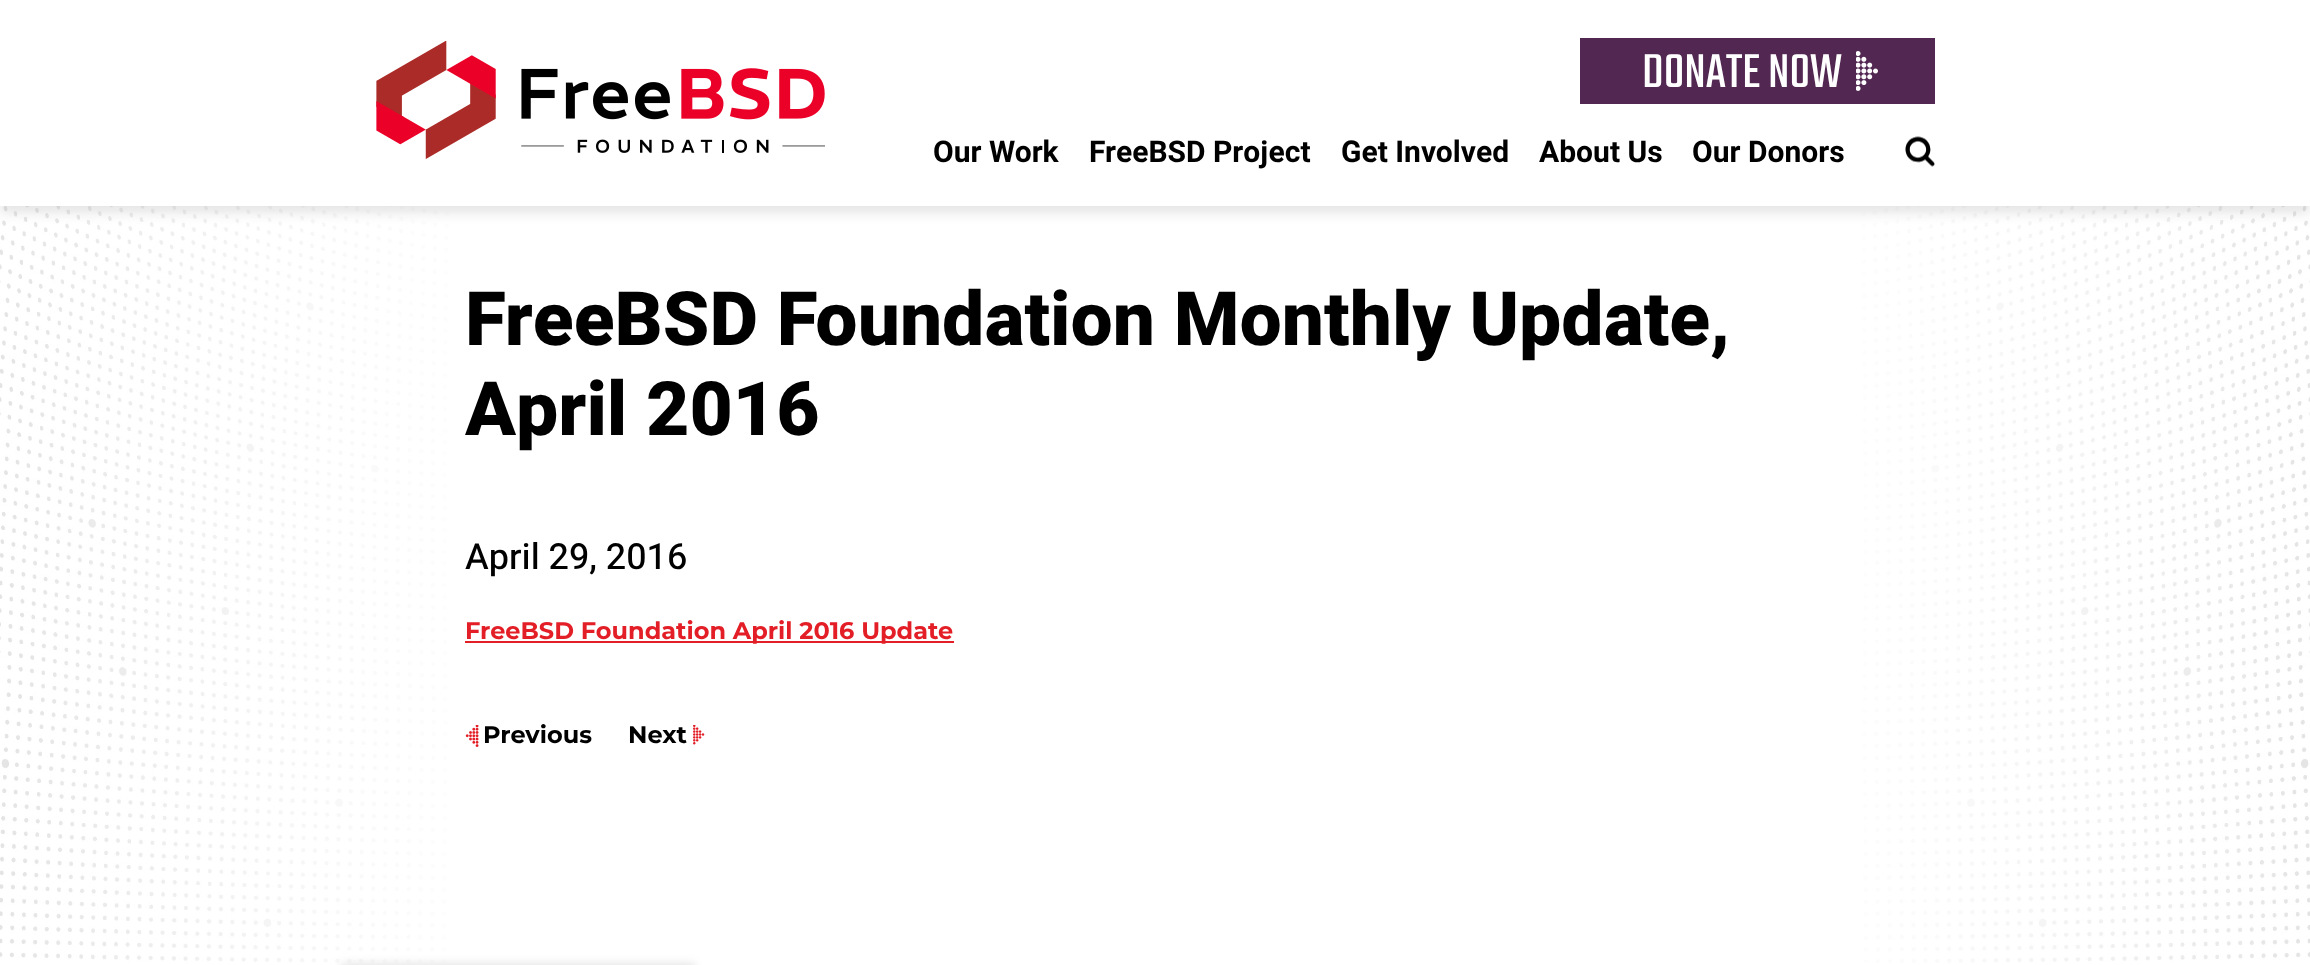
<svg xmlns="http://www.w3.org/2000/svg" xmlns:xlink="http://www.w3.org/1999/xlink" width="2310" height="965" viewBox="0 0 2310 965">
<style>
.cls-1{font:300 52.5px Teko;fill:#ffffff}
.cls-2{font:bold 30px Heebo;fill:#000000}
.cls-3{font:800 75px Heebo;fill:#000000}
.cls-4{font:500 36px Heebo;fill:#000000}
.cls-5{font:bold 24px Montserrat;fill:#e31e26}
.cls-6{font:bold 24px Montserrat;fill:#000000}
</style>
<rect width="100%" height="100%" fill="#ffffff"/>
<image xlink:href="image3.png" x="0" y="206" width="2310" height="757"/>
<rect fill="#969696" fill-opacity="0.25" filter="blur(6px)" x="0" y="8" width="2310" height="205"/>
<rect fill="#ffffff" x="0" y="0" width="2310" height="206"/>
<image xlink:href="image0.png" x="376" y="41" width="449" height="118"/>
<rect fill="#522752" x="1580" y="38" width="355" height="66"/>
<image xlink:href="image1.png" x="1856" y="51" width="22" height="40"/>
<image xlink:href="image2.png" x="1905" y="136" width="30" height="31"/>
<rect fill="#e31e26" x="465" y="641" width="489" height="2"/>
<image xlink:href="image4.png" x="465" y="725" width="14" height="22"/>
<image xlink:href="image5.png" x="693" y="725" width="12" height="20"/>
<rect fill="#c8c8c8" fill-opacity="0.45" filter="blur(4px)" x="341" y="963" width="354" height="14"/>
<text class="cls-1" x="1642" y="87">DONATE NOW</text>
<text class="cls-2" x="933" y="162">Our Work</text>
<text class="cls-2" x="1089" y="162">FreeBSD Project</text>
<text class="cls-2" x="1341" y="162">Get Involved</text>
<text class="cls-2" x="1539" y="162">About Us</text>
<text class="cls-2" x="1692" y="162">Our Donors</text>
<text class="cls-3"><tspan x="465" y="345">FreeBSD Foundation Monthly Update,</tspan><tspan x="465" y="435">April 2016</tspan></text>
<text class="cls-4" x="465" y="569">April 29, 2016</text>
<text class="cls-5" x="465" y="639">FreeBSD Foundation April 2016 Update</text>
<text class="cls-6" x="483" y="743">Previous</text>
<text class="cls-6" x="628" y="743">Next</text>
</svg>
